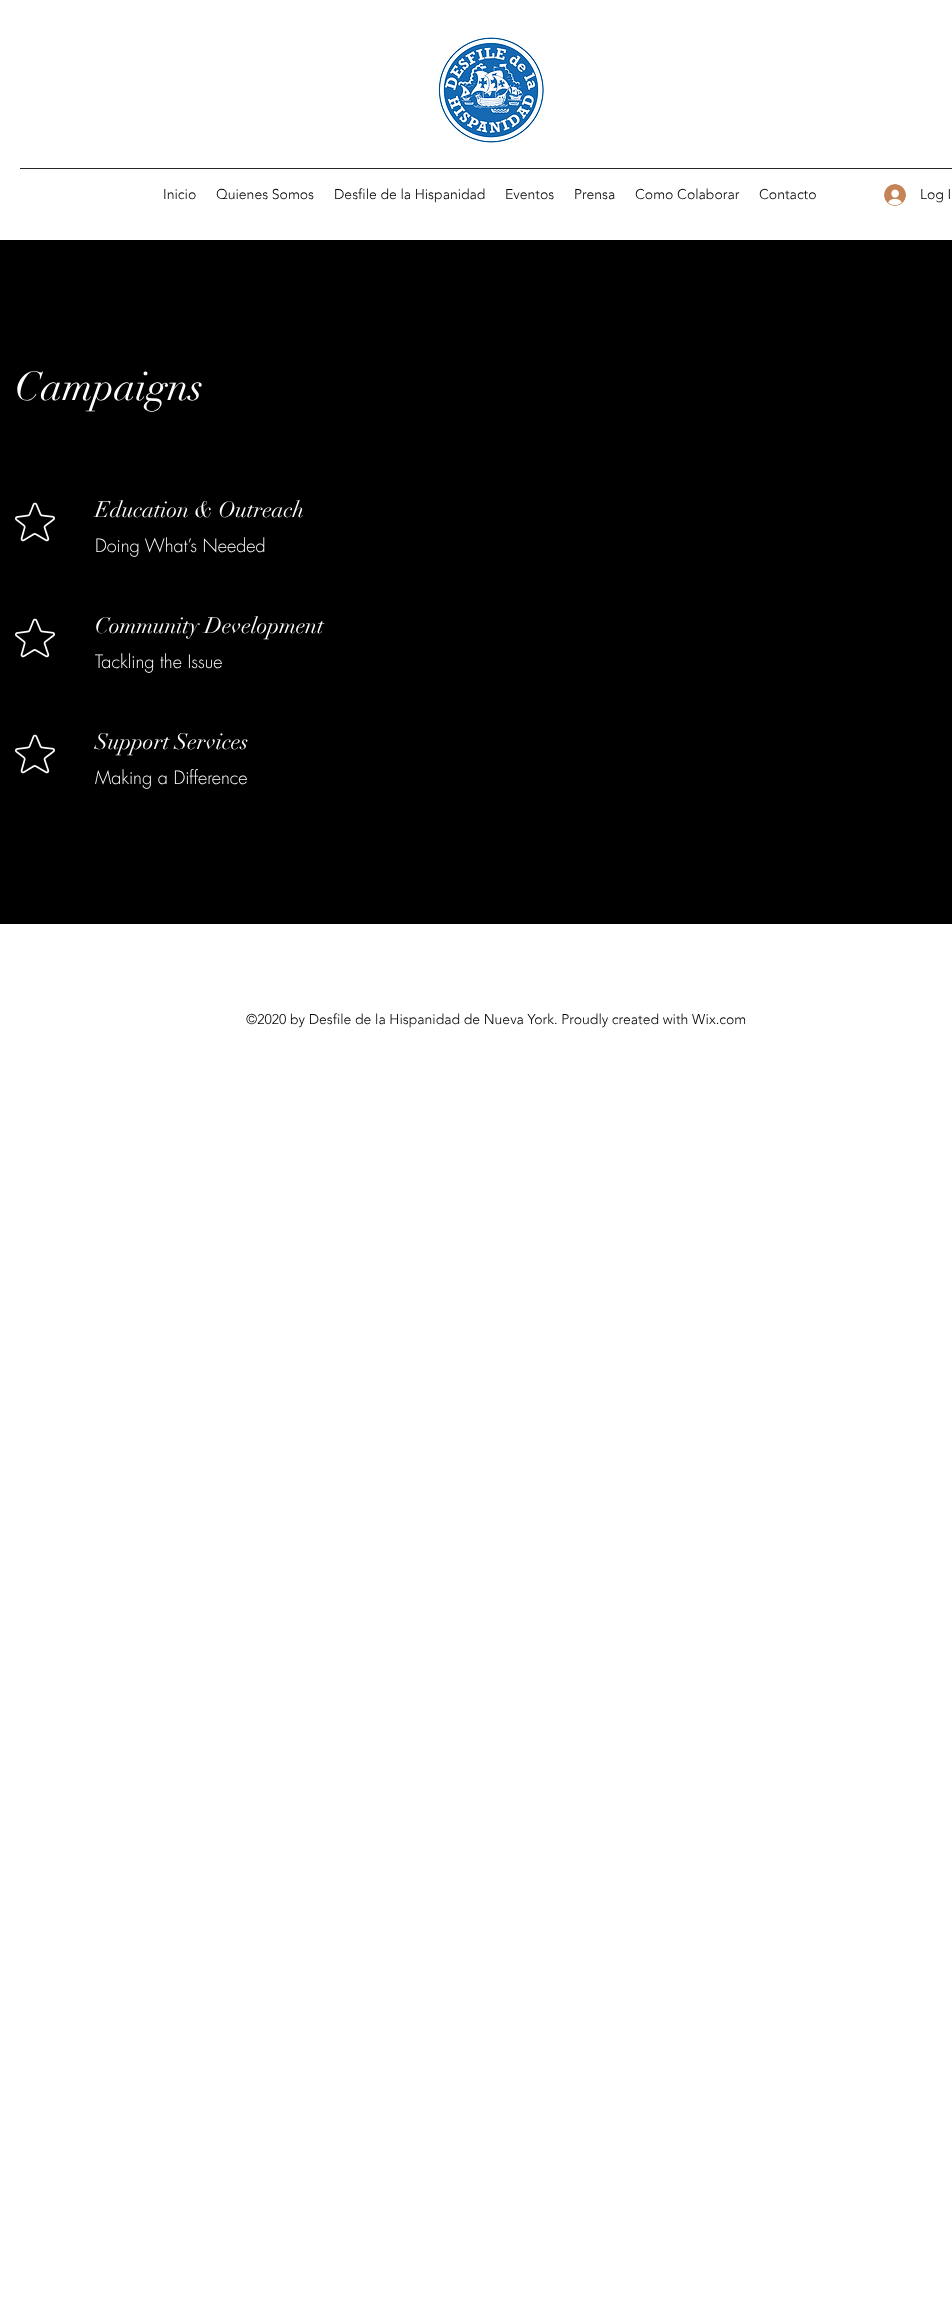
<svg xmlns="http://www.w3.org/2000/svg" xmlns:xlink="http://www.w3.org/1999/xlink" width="952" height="2323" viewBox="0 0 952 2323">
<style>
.cls-1{font:300 14px 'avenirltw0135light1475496';fill:#000000}
.cls-2{font:40px didot;fill:#ffffff}
.cls-3{font:22px didot;fill:#ffffff}
.cls-4{font:300 18px futura;fill:#ffffff}
</style>
<rect width="100%" height="100%" fill="#ffffff"/>
<image xlink:href="image0.png" x="437" y="37" width="107" height="106"/>
<rect fill="#262626" x="20" y="168" width="932" height="1"/>
<image xlink:href="image1.png" x="884" y="184" width="22" height="22"/>
<rect fill="#000000" x="0" y="240" width="952" height="684"/>
<image xlink:href="image2.png" x="15" y="502" width="40" height="40"/>
<image xlink:href="image2.png" x="15" y="618" width="40" height="40"/>
<image xlink:href="image2.png" x="15" y="734" width="40" height="40"/>
<text class="cls-1" x="163" y="199">Inicio</text>
<text class="cls-1" x="216" y="199">Quienes Somos</text>
<text class="cls-1" x="334" y="199">Desfile de la Hispanidad</text>
<text class="cls-1" x="505" y="199">Eventos</text>
<text class="cls-1" x="574" y="199">Prensa</text>
<text class="cls-1" x="635" y="199">Como Colaborar</text>
<text class="cls-1" x="759" y="199">Contacto</text>
<text class="cls-1" x="920" y="199">Log I</text>
<text class="cls-2" x="15" y="400">Campaigns</text>
<text class="cls-3" x="95" y="517">Education &amp; Outreach</text>
<text class="cls-4" x="95" y="552">Doing What’s Needed</text>
<text class="cls-3" x="95" y="633">Community Development</text>
<text class="cls-4" x="95" y="668">Tackling the Issue</text>
<text class="cls-3" x="95" y="749">Support Services</text>
<text class="cls-4" x="95" y="784">Making a Difference</text>
<text class="cls-1" x="246" y="1024">©2020 by Desfile de la Hispanidad de Nueva York. Proudly created with Wix.com</text>
</svg>
